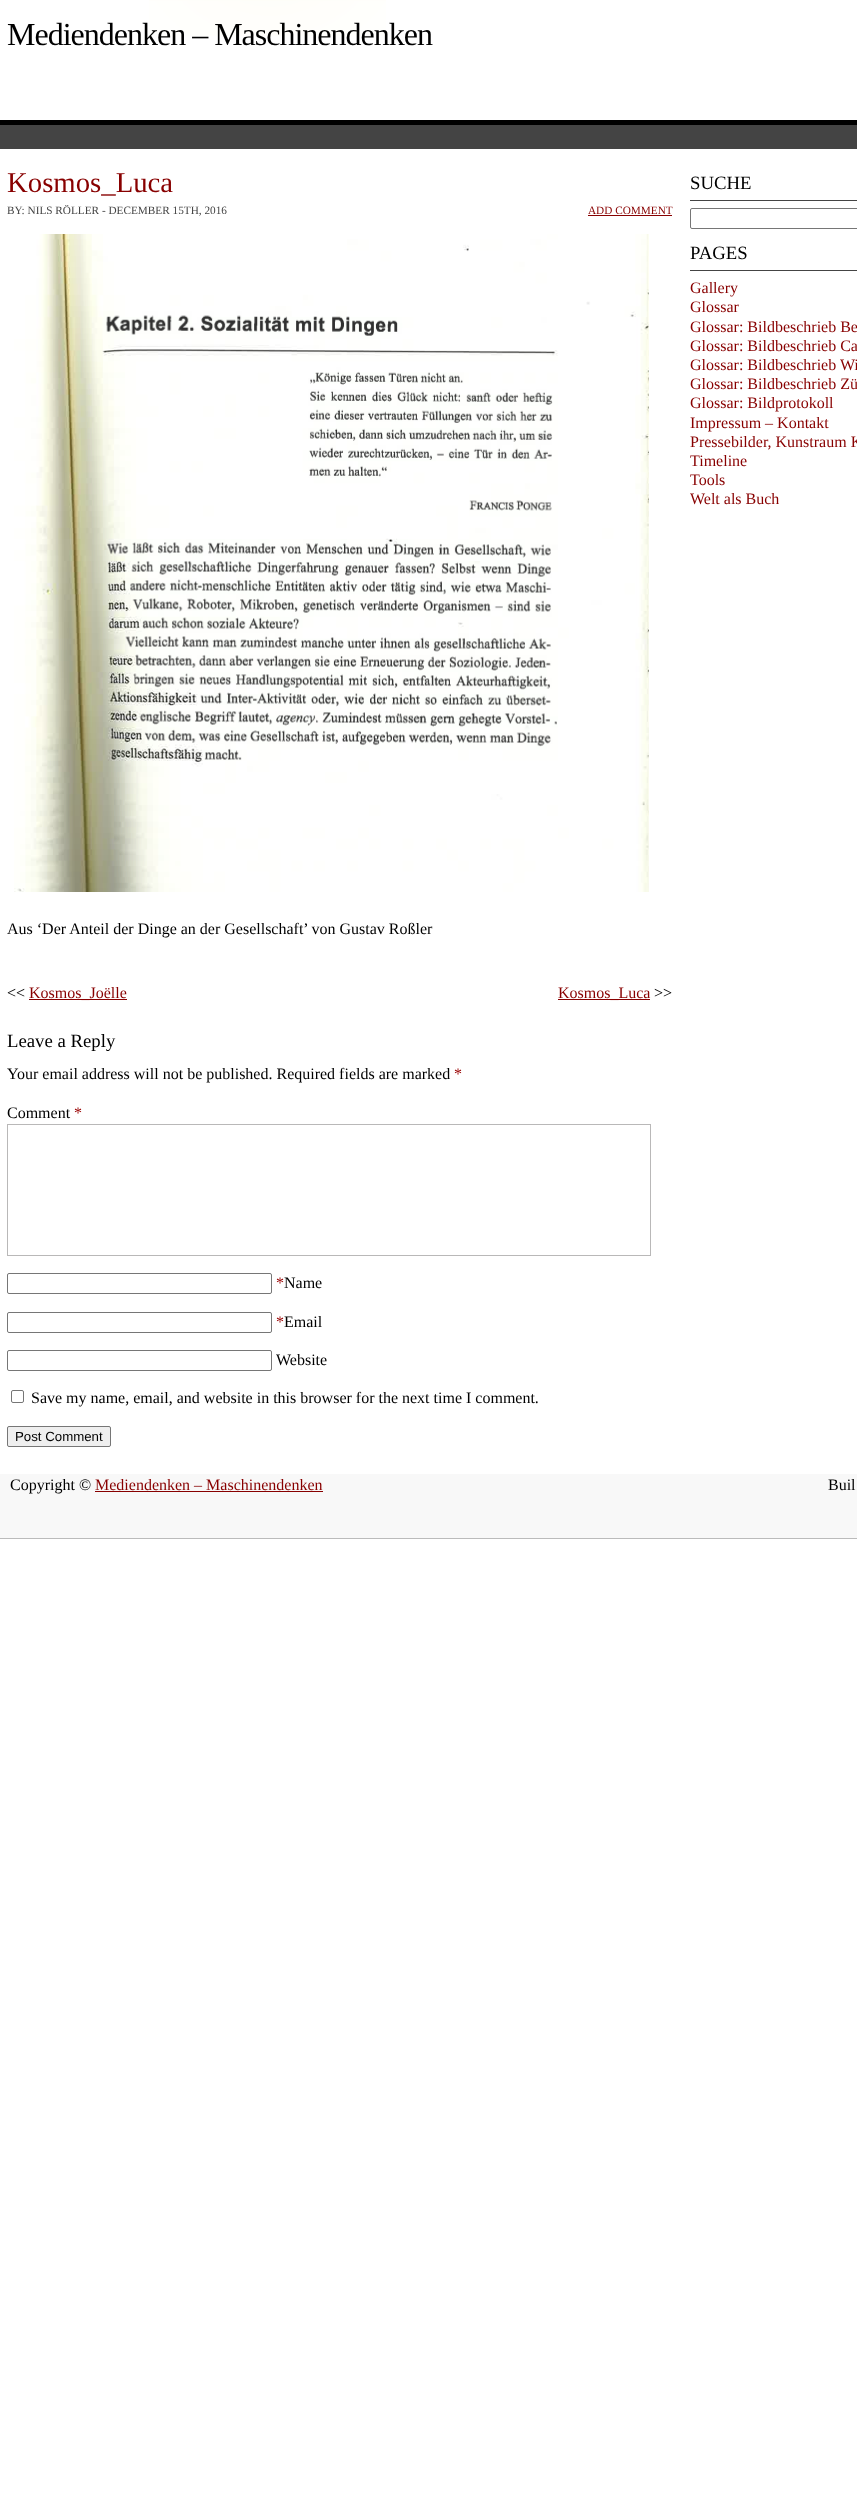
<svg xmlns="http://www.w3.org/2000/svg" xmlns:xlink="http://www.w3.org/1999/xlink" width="857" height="2508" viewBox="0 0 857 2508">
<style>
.cls-1{font:32px Liberation Serif;letter-spacing:-1px;fill:#000000}
.cls-2{font:28.75px Liberation Serif;fill:#880000}
.cls-3{font:11.25px Liberation Serif;fill:#444444}
.cls-4{font:11.25px Liberation Serif;fill:#880000}
.cls-5{font:16px Liberation Serif;fill:#000000}
.cls-6{font:16px Liberation Serif;fill:#880000}
.cls-7{font:18.75px Liberation Serif;fill:#000000}
.cls-8{font:16px Liberation Serif;fill:#990000}
.cls-9{font:13.25px Liberation Sans;fill:#000000}
</style>
<rect width="100%" height="100%" fill="#ffffff"/>
<image xlink:href="image0.png" x="149" y="0" width="237" height="36"/>
<rect fill="#000000" x="0" y="120" width="857" height="5"/>
<rect fill="#444444" x="0" y="125" width="857" height="24"/>
<rect fill="#880000" x="588" y="215" width="84" height="1"/>
<image xlink:href="image1.png" x="14" y="234" width="635" height="658"/>
<rect fill="#880000" x="29" y="999" width="98" height="1"/>
<rect fill="#880000" x="558" y="999" width="92" height="1"/>
<rect fill="none" stroke="#b9b8b8" x="7.5" y="1124.5" width="643" height="131"/>
<rect fill="none" stroke="#767676" x="7.5" y="1273.5" width="264" height="20" rx="1.5"/>
<rect fill="none" stroke="#767676" x="7.5" y="1312.5" width="264" height="20" rx="1.5"/>
<rect fill="none" stroke="#767676" x="7.5" y="1350.5" width="264" height="20" rx="1.5"/>
<rect fill="none" stroke="#767676" x="11.5" y="1390.5" width="12" height="12" rx="1.5"/>
<rect fill="#efefef" stroke="#767676" x="7.5" y="1426.5" width="103" height="20" rx="1.5"/>
<rect fill="#444444" x="690" y="200" width="167" height="1"/>
<rect fill="none" stroke="#767676" x="690.5" y="208.5" width="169" height="20" rx="1.5"/>
<rect fill="#444444" x="690" y="270" width="167" height="1"/>
<rect fill="#f8f8f8" x="0" y="1474" width="857" height="64"/>
<rect fill="#bbbbbb" x="0" y="1538" width="857" height="1"/>
<rect fill="#880000" x="95" y="1491" width="228" height="1"/>
<text class="cls-1" x="7" y="45">Mediendenken – Maschinendenken</text>
<text class="cls-2" x="7" y="192">Kosmos_Luca</text>
<text class="cls-3" x="7" y="214">BY: NILS RÖLLER - DECEMBER 15TH, 2016</text>
<text class="cls-4" x="588" y="214">ADD COMMENT</text>
<text class="cls-5" x="7" y="934">Aus ‘Der Anteil der Dinge an der Gesellschaft’ von Gustav Roßler</text>
<text class="cls-5" x="7" y="998">&lt;&lt;</text>
<text class="cls-6" x="29" y="998">Kosmos_Joëlle</text>
<text class="cls-6" x="558" y="998">Kosmos_Luca</text>
<text class="cls-5" x="654" y="998">&gt;&gt;</text>
<text class="cls-7" x="7" y="1047">Leave a Reply</text>
<text class="cls-5" x="7" y="1079">Your email address will not be published. Required fields are marked</text>
<text class="cls-8" x="454" y="1079">*</text>
<text class="cls-5" x="7" y="1118">Comment</text>
<text class="cls-8" x="74" y="1118">*</text>
<text class="cls-8" x="276" y="1288">*</text>
<text class="cls-5" x="284" y="1288">Name</text>
<text class="cls-8" x="276" y="1327">*</text>
<text class="cls-5" x="284" y="1327">Email</text>
<text class="cls-5" x="276" y="1365">Website</text>
<text class="cls-5" x="31" y="1403">Save my name, email, and website in this browser for the next time I comment.</text>
<text class="cls-9" x="15" y="1441">Post Comment</text>
<text class="cls-7" x="690" y="189">SUCHE</text>
<text class="cls-7" x="690" y="259">PAGES</text>
<text class="cls-6"><tspan x="690" y="293">Gallery</tspan><tspan x="690" y="312">Glossar</tspan><tspan x="690" y="332">Glossar: Bildbeschrieb Be</tspan><tspan x="690" y="351">Glossar: Bildbeschrieb Ca</tspan><tspan x="690" y="370">Glossar: Bildbeschrieb Wi</tspan><tspan x="690" y="389">Glossar: Bildbeschrieb Zü</tspan><tspan x="690" y="408">Glossar: Bildprotokoll</tspan><tspan x="690" y="428">Impressum – Kontakt</tspan><tspan x="690" y="447">Pressebilder, Kunstraum K</tspan><tspan x="690" y="466">Timeline</tspan><tspan x="690" y="485">Tools</tspan><tspan x="690" y="504">Welt als Buch</tspan></text>
<text class="cls-5" x="10" y="1490">Copyright ©</text>
<text class="cls-6" x="95" y="1490">Mediendenken – Maschinendenken</text>
<text class="cls-5" x="828" y="1490">Buil</text>
</svg>
